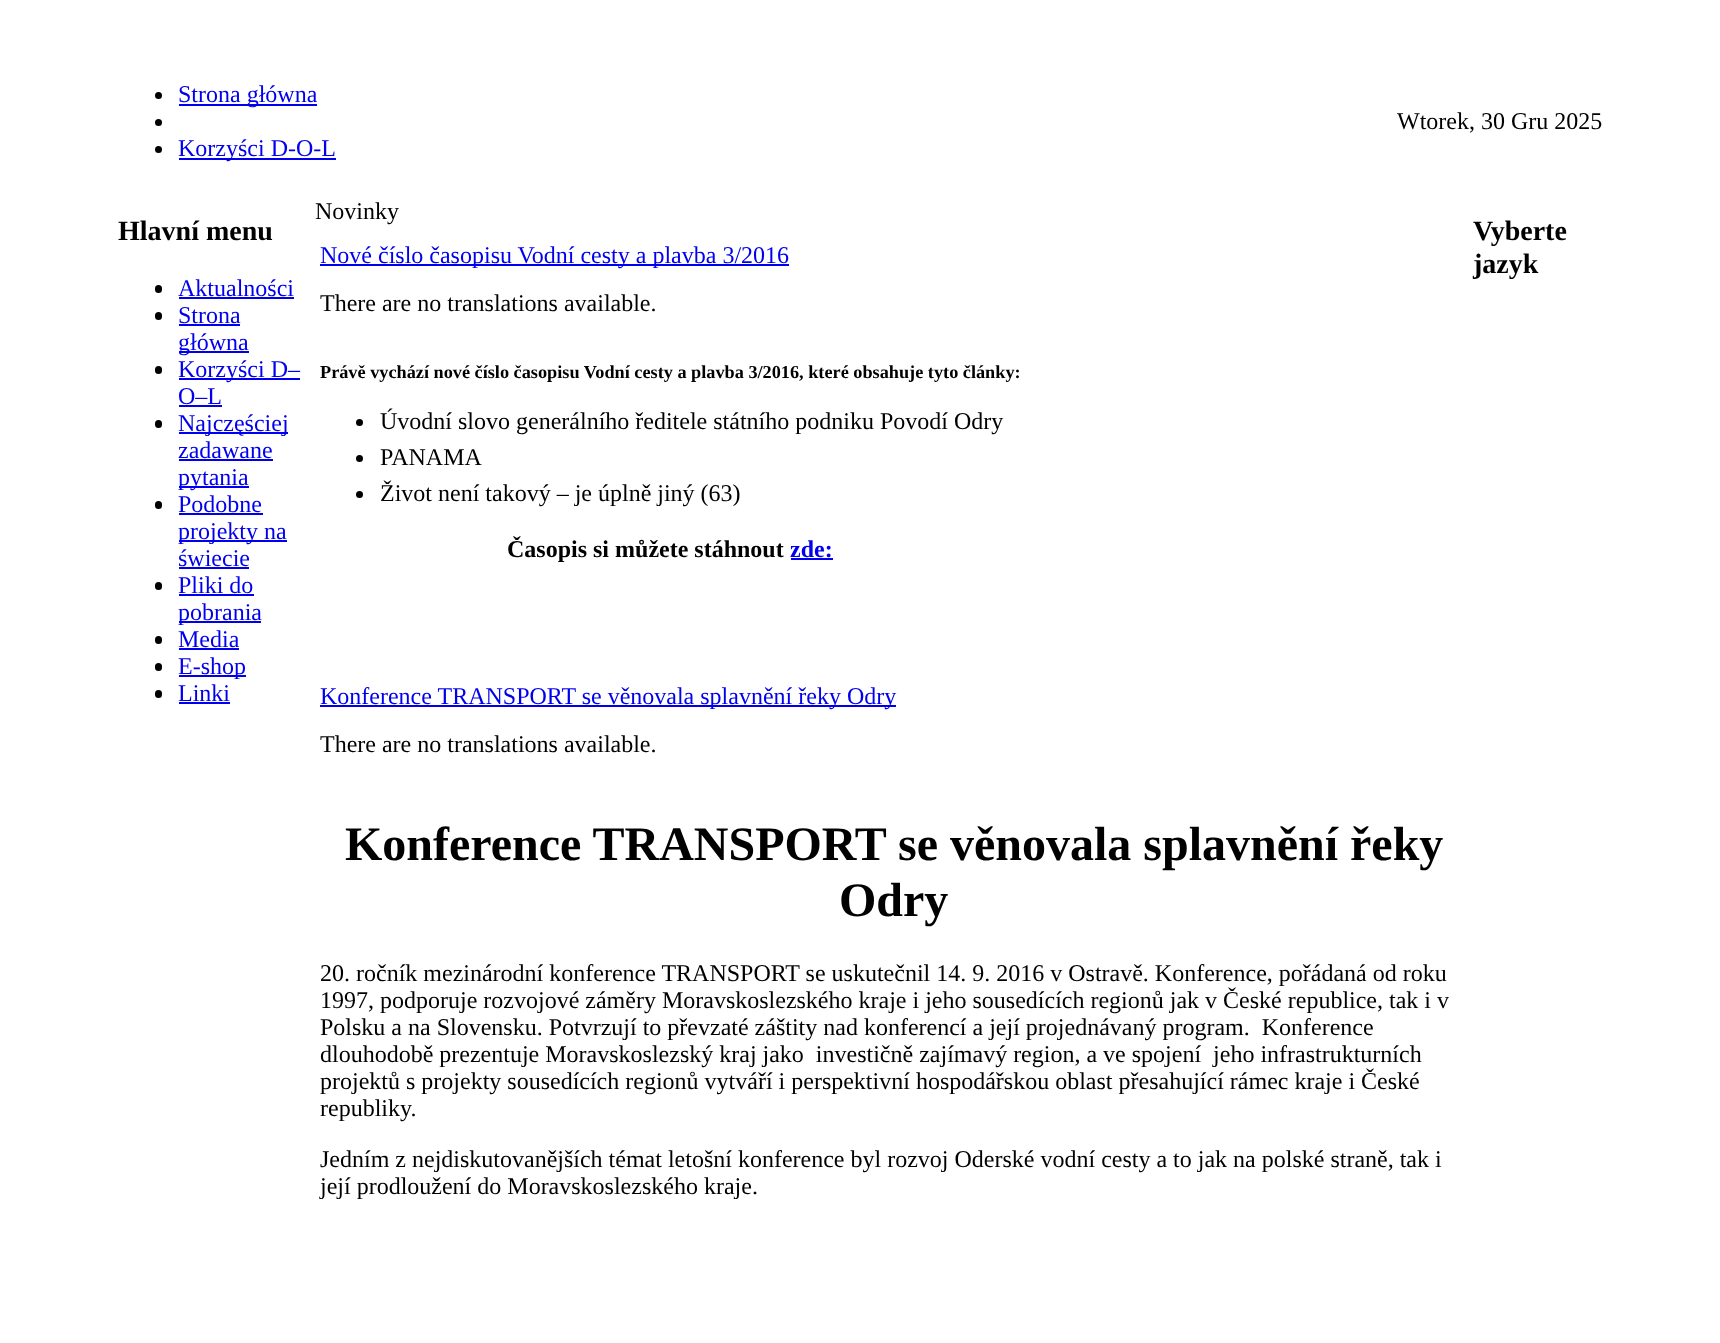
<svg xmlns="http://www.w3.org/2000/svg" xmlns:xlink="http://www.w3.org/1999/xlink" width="1720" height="1343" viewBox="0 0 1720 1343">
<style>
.cls-1{font:24px Liberation Serif;fill:#0000ee}
.cls-2{font:24px Liberation Serif;fill:#000000}
.cls-3{font:bold 28px Liberation Serif;fill:#000000}
.cls-4{font:bold 18.25px Liberation Serif;fill:#000000}
.cls-5{font:bold 24px Liberation Serif;fill:#000000}
.cls-6{font:bold 24px Liberation Serif;fill:#0000ee}
.cls-7{font:bold 48px Liberation Serif;fill:#000000}
</style>
<rect width="100%" height="100%" fill="#ffffff"/>
<circle fill="#000000" cx="158.5" cy="95.5" r="3.5"/>
<rect fill="#0000ee" x="179" y="104" width="138" height="2"/>
<circle fill="#000000" cx="158.5" cy="122.5" r="3.5"/>
<circle fill="#000000" cx="158.5" cy="149.5" r="3.5"/>
<rect fill="#0000ee" x="179" y="158" width="157" height="2"/>
<rect fill="#000000" x="155" y="285" width="7" height="8" rx="3.5"/>
<rect fill="#0000ee" x="179" y="297" width="115" height="2"/>
<rect fill="#000000" x="155" y="312" width="7" height="8" rx="3.5"/>
<rect fill="#0000ee" x="179" y="324" width="61" height="2"/>
<rect fill="#0000ee" x="179" y="351" width="70" height="2"/>
<rect fill="#000000" x="155" y="366" width="7" height="8" rx="3.5"/>
<rect fill="#0000ee" x="179" y="378" width="121" height="2"/>
<rect fill="#0000ee" x="179" y="405" width="43" height="2"/>
<rect fill="#000000" x="155" y="420" width="7" height="8" rx="3.5"/>
<rect fill="#0000ee" x="179" y="432" width="109" height="2"/>
<rect fill="#0000ee" x="179" y="459" width="94" height="2"/>
<rect fill="#0000ee" x="179" y="486" width="70" height="2"/>
<rect fill="#000000" x="155" y="501" width="7" height="8" rx="3.5"/>
<rect fill="#0000ee" x="179" y="513" width="84" height="2"/>
<rect fill="#0000ee" x="179" y="540" width="108" height="2"/>
<rect fill="#0000ee" x="179" y="567" width="70" height="2"/>
<rect fill="#000000" x="155" y="582" width="7" height="8" rx="3.5"/>
<rect fill="#0000ee" x="179" y="594" width="75" height="2"/>
<rect fill="#0000ee" x="179" y="621" width="82" height="2"/>
<rect fill="#000000" x="155" y="636" width="7" height="8" rx="3.5"/>
<rect fill="#0000ee" x="179" y="648" width="60" height="2"/>
<rect fill="#000000" x="155" y="663" width="7" height="8" rx="3.5"/>
<rect fill="#0000ee" x="179" y="675" width="67" height="2"/>
<rect fill="#000000" x="155" y="690" width="7" height="8" rx="3.5"/>
<rect fill="#0000ee" x="179" y="702" width="51" height="2"/>
<rect fill="#0000ee" x="320" y="264" width="469" height="2"/>
<circle fill="#000000" cx="359.5" cy="422.5" r="3.5"/>
<circle fill="#000000" cx="359.5" cy="458.5" r="3.5"/>
<circle fill="#000000" cx="359.5" cy="494.5" r="3.5"/>
<rect fill="#0000ee" x="791" y="558" width="42" height="2"/>
<rect fill="#0000ee" x="320" y="705" width="576" height="2"/>
<text class="cls-1" x="178" y="102">Strona główna</text>
<text class="cls-1" x="178" y="156">Korzyści D-O-L</text>
<text class="cls-2" x="1397" y="129">Wtorek, 30 Gru 2025</text>
<text class="cls-3" x="118" y="240">Hlavní menu</text>
<text class="cls-1"><tspan x="178" y="296">Aktualności</tspan><tspan x="178" y="323">Strona</tspan><tspan x="178" y="350">główna</tspan><tspan x="178" y="377">Korzyści D–</tspan><tspan x="178" y="404">O–L</tspan><tspan x="178" y="431">Najczęściej</tspan><tspan x="178" y="458">zadawane</tspan><tspan x="178" y="485">pytania</tspan><tspan x="178" y="512">Podobne</tspan><tspan x="178" y="539">projekty na</tspan><tspan x="178" y="566">świecie</tspan><tspan x="178" y="593">Pliki do</tspan><tspan x="178" y="620">pobrania</tspan><tspan x="178" y="647">Media</tspan><tspan x="178" y="674">E-shop</tspan><tspan x="178" y="701">Linki</tspan></text>
<text class="cls-2" x="315" y="219">Novinky</text>
<text class="cls-1" x="320" y="263">Nové číslo časopisu Vodní cesty a plavba 3/2016</text>
<text class="cls-2" x="320" y="311">There are no translations available.</text>
<text class="cls-4" x="320" y="378">Právě vychází nové číslo časopisu Vodní cesty a plavba 3/2016, které obsahuje tyto články:</text>
<text class="cls-2"><tspan x="380" y="429">Úvodní slovo generálního ředitele státního podniku Povodí Odry</tspan><tspan x="380" y="465">PANAMA</tspan><tspan x="380" y="501">Život není takový – je úplně jiný (63)</tspan></text>
<text class="cls-5" x="507" y="557">Časopis si můžete stáhnout</text>
<text class="cls-6" x="790" y="557">zde:</text>
<text class="cls-1" x="320" y="704">Konference TRANSPORT se věnovala splavnění řeky Odry</text>
<text class="cls-2" x="320" y="752">There are no translations available.</text>
<text class="cls-7" x="345" y="860">Konference TRANSPORT se věnovala splavnění řeky</text>
<text class="cls-7" x="839" y="916">Odry</text>
<text class="cls-2" xml:space="preserve"><tspan x="320" y="981">20. ročník mezinárodní konference TRANSPORT se uskutečnil 14. 9. 2016 v Ostravě. Konference, pořádaná od roku</tspan><tspan x="320" y="1008">1997, podporuje rozvojové záměry Moravskoslezského kraje i jeho sousedících regionů jak v České republice, tak i v</tspan><tspan x="320" y="1035">Polsku a na Slovensku. Potvrzují to převzaté záštity nad konferencí a její projednávaný program.  Konference</tspan><tspan x="320" y="1062">dlouhodobě prezentuje Moravskoslezský kraj jako  investičně zajímavý region, a ve spojení  jeho infrastrukturních</tspan><tspan x="320" y="1089">projektů s projekty sousedících regionů vytváří i perspektivní hospodářskou oblast přesahující rámec kraje i České</tspan><tspan x="320" y="1116">republiky.</tspan></text>
<text class="cls-2"><tspan x="320" y="1167">Jedním z nejdiskutovanějších témat letošní konference byl rozvoj Oderské vodní cesty a to jak na polské straně, tak i</tspan><tspan x="320" y="1194">její prodloužení do Moravskoslezského kraje.</tspan></text>
<text class="cls-3"><tspan x="1473" y="240">Vyberte</tspan><tspan x="1473" y="273">jazyk</tspan></text>
</svg>
